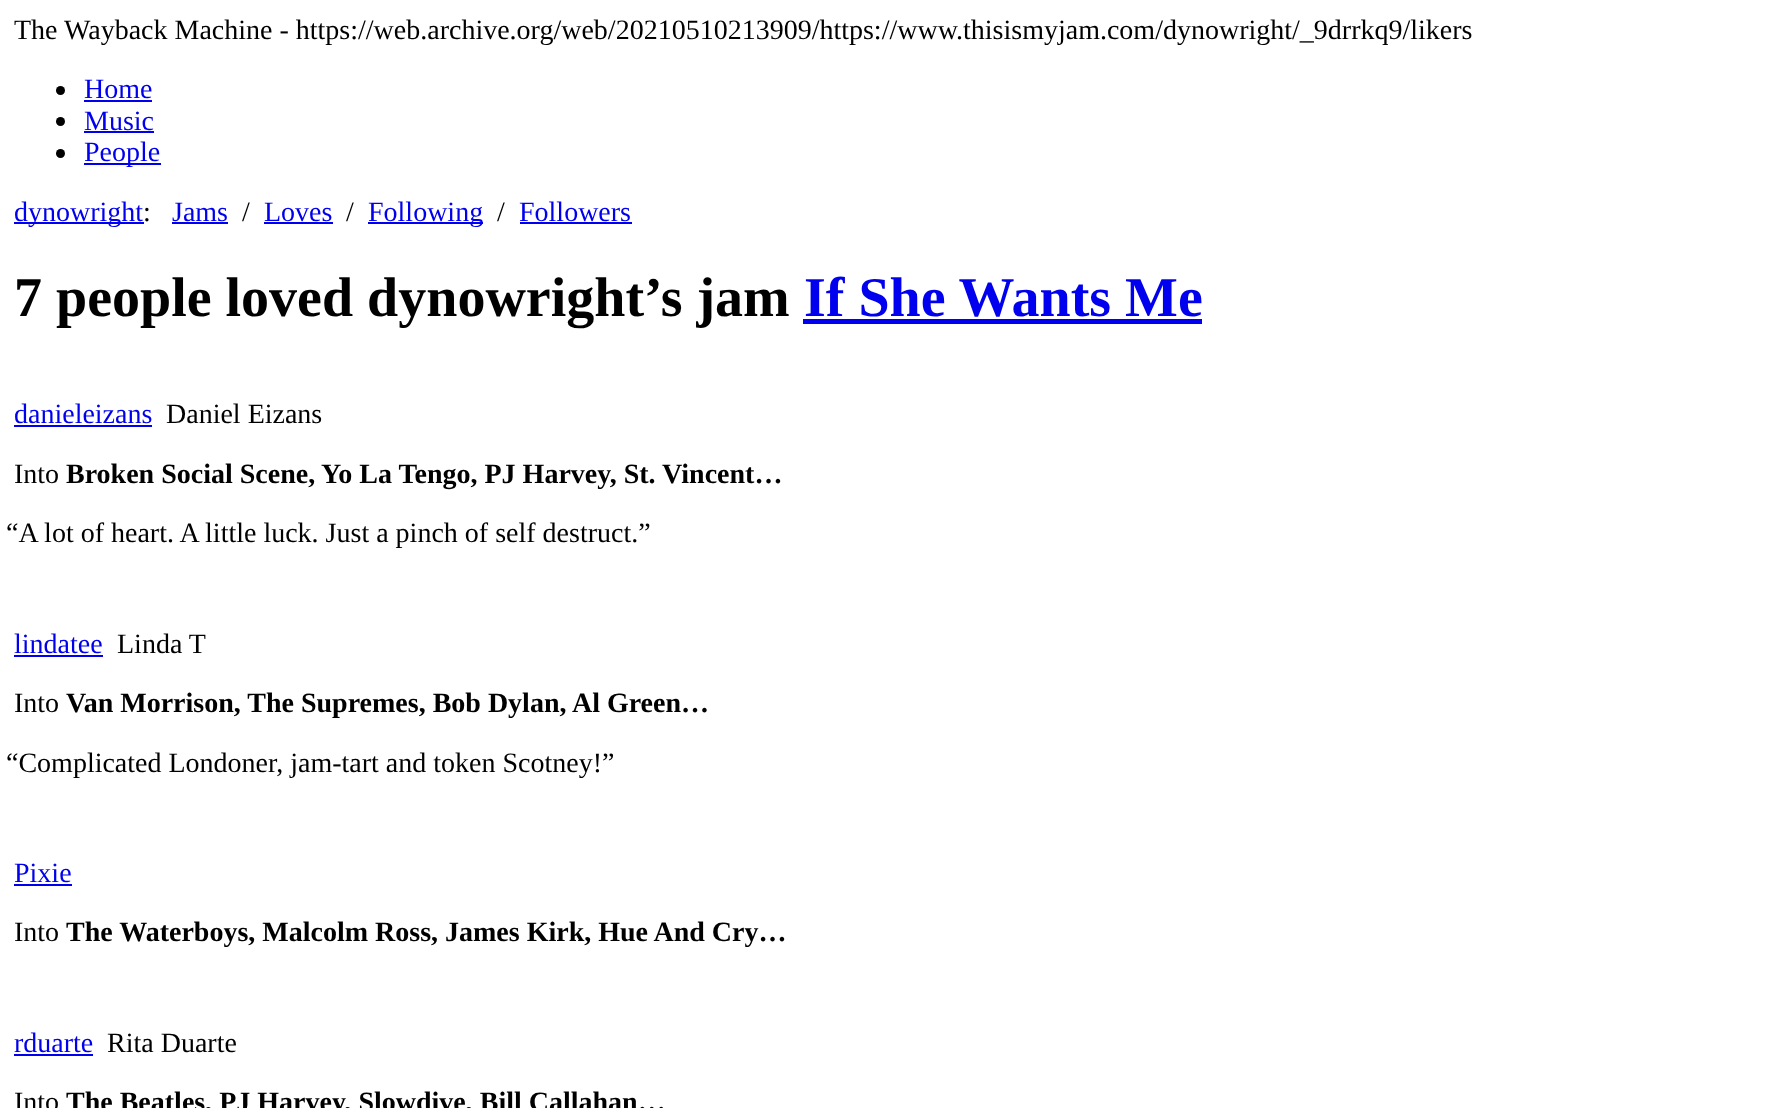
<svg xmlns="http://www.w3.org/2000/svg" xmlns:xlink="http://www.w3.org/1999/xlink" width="1785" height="1108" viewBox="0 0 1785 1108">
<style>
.cls-1{font:28px Liberation Serif;fill:#000000}
.cls-2{font:28px Liberation Serif;fill:#0000ee}
.cls-3{font:bold 56px Liberation Serif;fill:#000000}
.cls-4{font:bold 56px Liberation Serif;fill:#0000ee}
.cls-5{font:bold 28px Liberation Serif;fill:#000000}
</style>
<rect width="100%" height="100%" fill="#ffffff"/>
<circle fill="#000000" cx="60.5" cy="90.5" r="4.5"/>
<rect fill="#0000ee" x="84" y="100" width="68" height="2"/>
<circle fill="#000000" cx="60.5" cy="121.5" r="4.5"/>
<rect fill="#0000ee" x="84" y="131" width="70" height="2"/>
<circle fill="#000000" cx="60.5" cy="153.5" r="4.5"/>
<rect fill="#0000ee" x="84" y="163" width="77" height="2"/>
<rect fill="#0000ee" x="14" y="222" width="130" height="2"/>
<rect fill="#0000ee" x="172" y="222" width="56" height="2"/>
<rect fill="#0000ee" x="264" y="222" width="69" height="2"/>
<rect fill="#0000ee" x="368" y="222" width="115" height="2"/>
<rect fill="#0000ee" x="520" y="222" width="112" height="2"/>
<rect fill="#0000ee" x="803" y="319" width="399" height="5"/>
<rect fill="#0000ee" x="14" y="425" width="138" height="2"/>
<rect fill="#0000ee" x="14" y="655" width="89" height="2"/>
<rect fill="#0000ee" x="14" y="884" width="58" height="2"/>
<rect fill="#0000ee" x="14" y="1054" width="79" height="2"/>
<text class="cls-1" x="14" y="39">The Wayback Machine - https://web.archive.org/web/20210510213909/https://www.thisismyjam.com/dynowright/_9drrkq9/likers</text>
<text class="cls-2"><tspan x="84" y="98">Home</tspan><tspan x="84" y="130">Music</tspan><tspan x="84" y="161">People</tspan></text>
<text class="cls-2" x="14" y="221">dynowright</text>
<text class="cls-1" x="143" y="221">:</text>
<text class="cls-2" x="172" y="221">Jams</text>
<text class="cls-1" x="242" y="221">/</text>
<text class="cls-2" x="264" y="221">Loves</text>
<text class="cls-1" x="346" y="221">/</text>
<text class="cls-2" x="368" y="221">Following</text>
<text class="cls-1" x="497" y="221">/</text>
<text class="cls-2" x="519" y="221">Followers</text>
<text class="cls-3" x="14" y="316">7 people loved dynowright’s jam</text>
<text class="cls-4" x="804" y="316">If She Wants Me</text>
<text class="cls-2" x="14" y="423">danieleizans</text>
<text class="cls-1" x="166" y="423">Daniel Eizans</text>
<text class="cls-1" x="14" y="483">Into</text>
<text class="cls-5" x="66" y="483">Broken Social Scene, Yo La Tengo, PJ Harvey, St. Vincent…</text>
<text class="cls-1" x="6" y="542">“A lot of heart. A little luck. Just a pinch of self destruct.”</text>
<text class="cls-2" x="14" y="653">lindatee</text>
<text class="cls-1" x="117" y="653">Linda T</text>
<text class="cls-1" x="14" y="712">Into</text>
<text class="cls-5" x="66" y="712">Van Morrison, The Supremes, Bob Dylan, Al Green…</text>
<text class="cls-1" x="6" y="772">“Complicated Londoner, jam-tart and token Scotney!”</text>
<text class="cls-2" x="14" y="882">Pixie</text>
<text class="cls-1" x="14" y="941">Into</text>
<text class="cls-5" x="66" y="941">The Waterboys, Malcolm Ross, James Kirk, Hue And Cry…</text>
<text class="cls-2" x="14" y="1052">rduarte</text>
<text class="cls-1" x="107" y="1052">Rita Duarte</text>
<text class="cls-1" x="14" y="1111">Into</text>
<text class="cls-5" x="66" y="1111">The Beatles, PJ Harvey, Slowdive, Bill Callahan…</text>
</svg>
